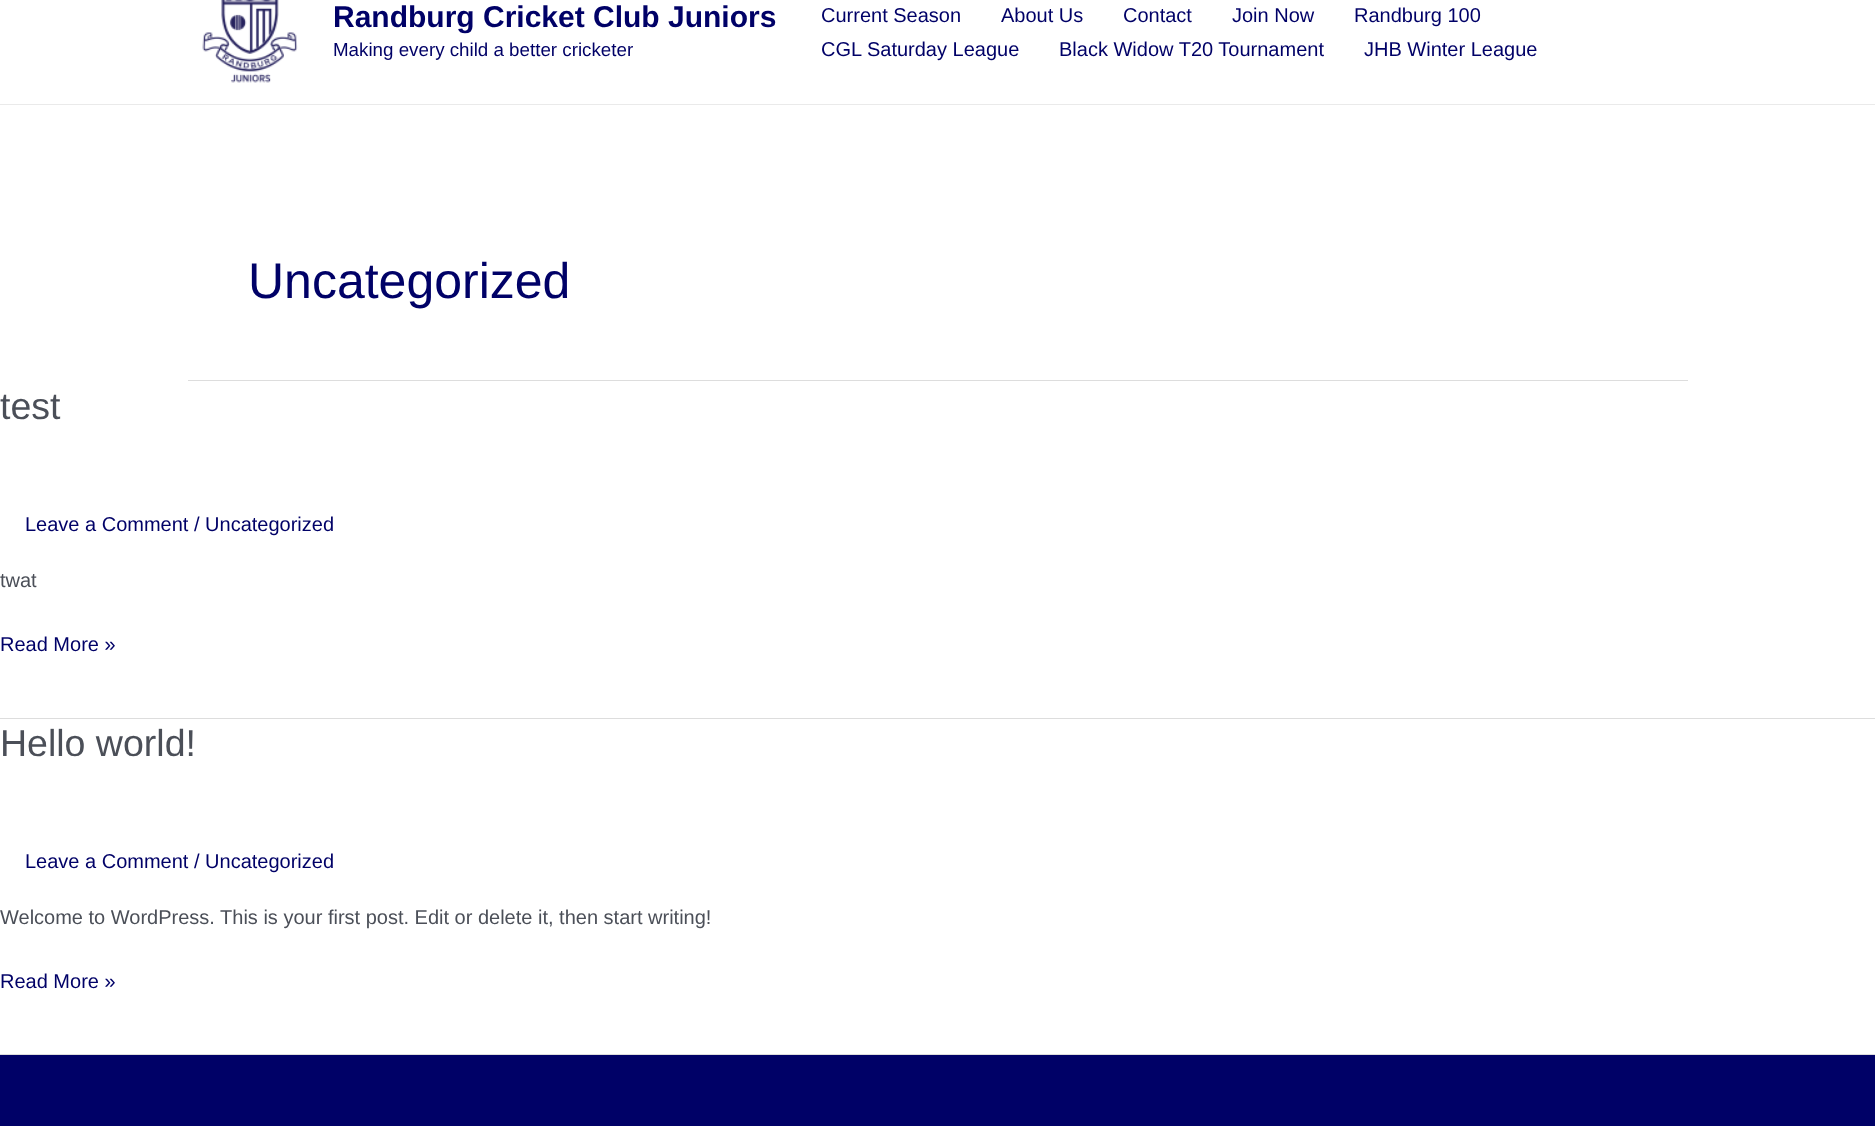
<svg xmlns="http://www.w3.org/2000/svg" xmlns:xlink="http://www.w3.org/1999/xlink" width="1875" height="1126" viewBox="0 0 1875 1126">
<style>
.cls-1{font:bold 30px Liberation Sans;fill:#000167}
.cls-2{font:18.75px Liberation Sans;fill:#000167}
.cls-3{font:20px Liberation Sans;fill:#000167}
.cls-4{font:50px Liberation Sans;fill:#000167}
.cls-5{font:37.5px Liberation Sans;fill:#4b4f58}
.cls-6{font:20px Liberation Sans;fill:#4b4f58}
</style>
<rect width="100%" height="100%" fill="#ffffff"/>
<rect fill="#eaeaea" x="0" y="104" width="1875" height="1"/>
<image xlink:href="image0.png" x="202" y="0" width="96" height="83"/>
<rect fill="#dddddd" x="188" y="380" width="1500" height="1"/>
<rect fill="#dddddd" x="0" y="718" width="1875" height="1"/>
<rect fill="#dddddd" x="0" y="1054" width="1875" height="1"/>
<rect fill="#000167" x="0" y="1055" width="1875" height="71"/>
<text class="cls-1" x="333" y="27">Randburg Cricket Club Juniors</text>
<text class="cls-2" x="333" y="56">Making every child a better cricketer</text>
<text class="cls-3" x="821" y="22">Current Season</text>
<text class="cls-3" x="1001" y="22">About Us</text>
<text class="cls-3" x="1123" y="22">Contact</text>
<text class="cls-3" x="1232" y="22">Join Now</text>
<text class="cls-3" x="1354" y="22">Randburg 100</text>
<text class="cls-3" x="821" y="56">CGL Saturday League</text>
<text class="cls-3" x="1059" y="56">Black Widow T20 Tournament</text>
<text class="cls-3" x="1364" y="56">JHB Winter League</text>
<text class="cls-4" x="248" y="298">Uncategorized</text>
<text class="cls-5" x="0" y="419">test</text>
<text class="cls-3" x="25" y="531">Leave a Comment / Uncategorized</text>
<text class="cls-6" x="0" y="587">twat</text>
<text class="cls-3" x="0" y="651">Read More »</text>
<text class="cls-5" x="0" y="756">Hello world!</text>
<text class="cls-3" x="25" y="868">Leave a Comment / Uncategorized</text>
<text class="cls-6" x="0" y="924">Welcome to WordPress. This is your first post. Edit or delete it, then start writing!</text>
<text class="cls-3" x="0" y="988">Read More »</text>
</svg>
